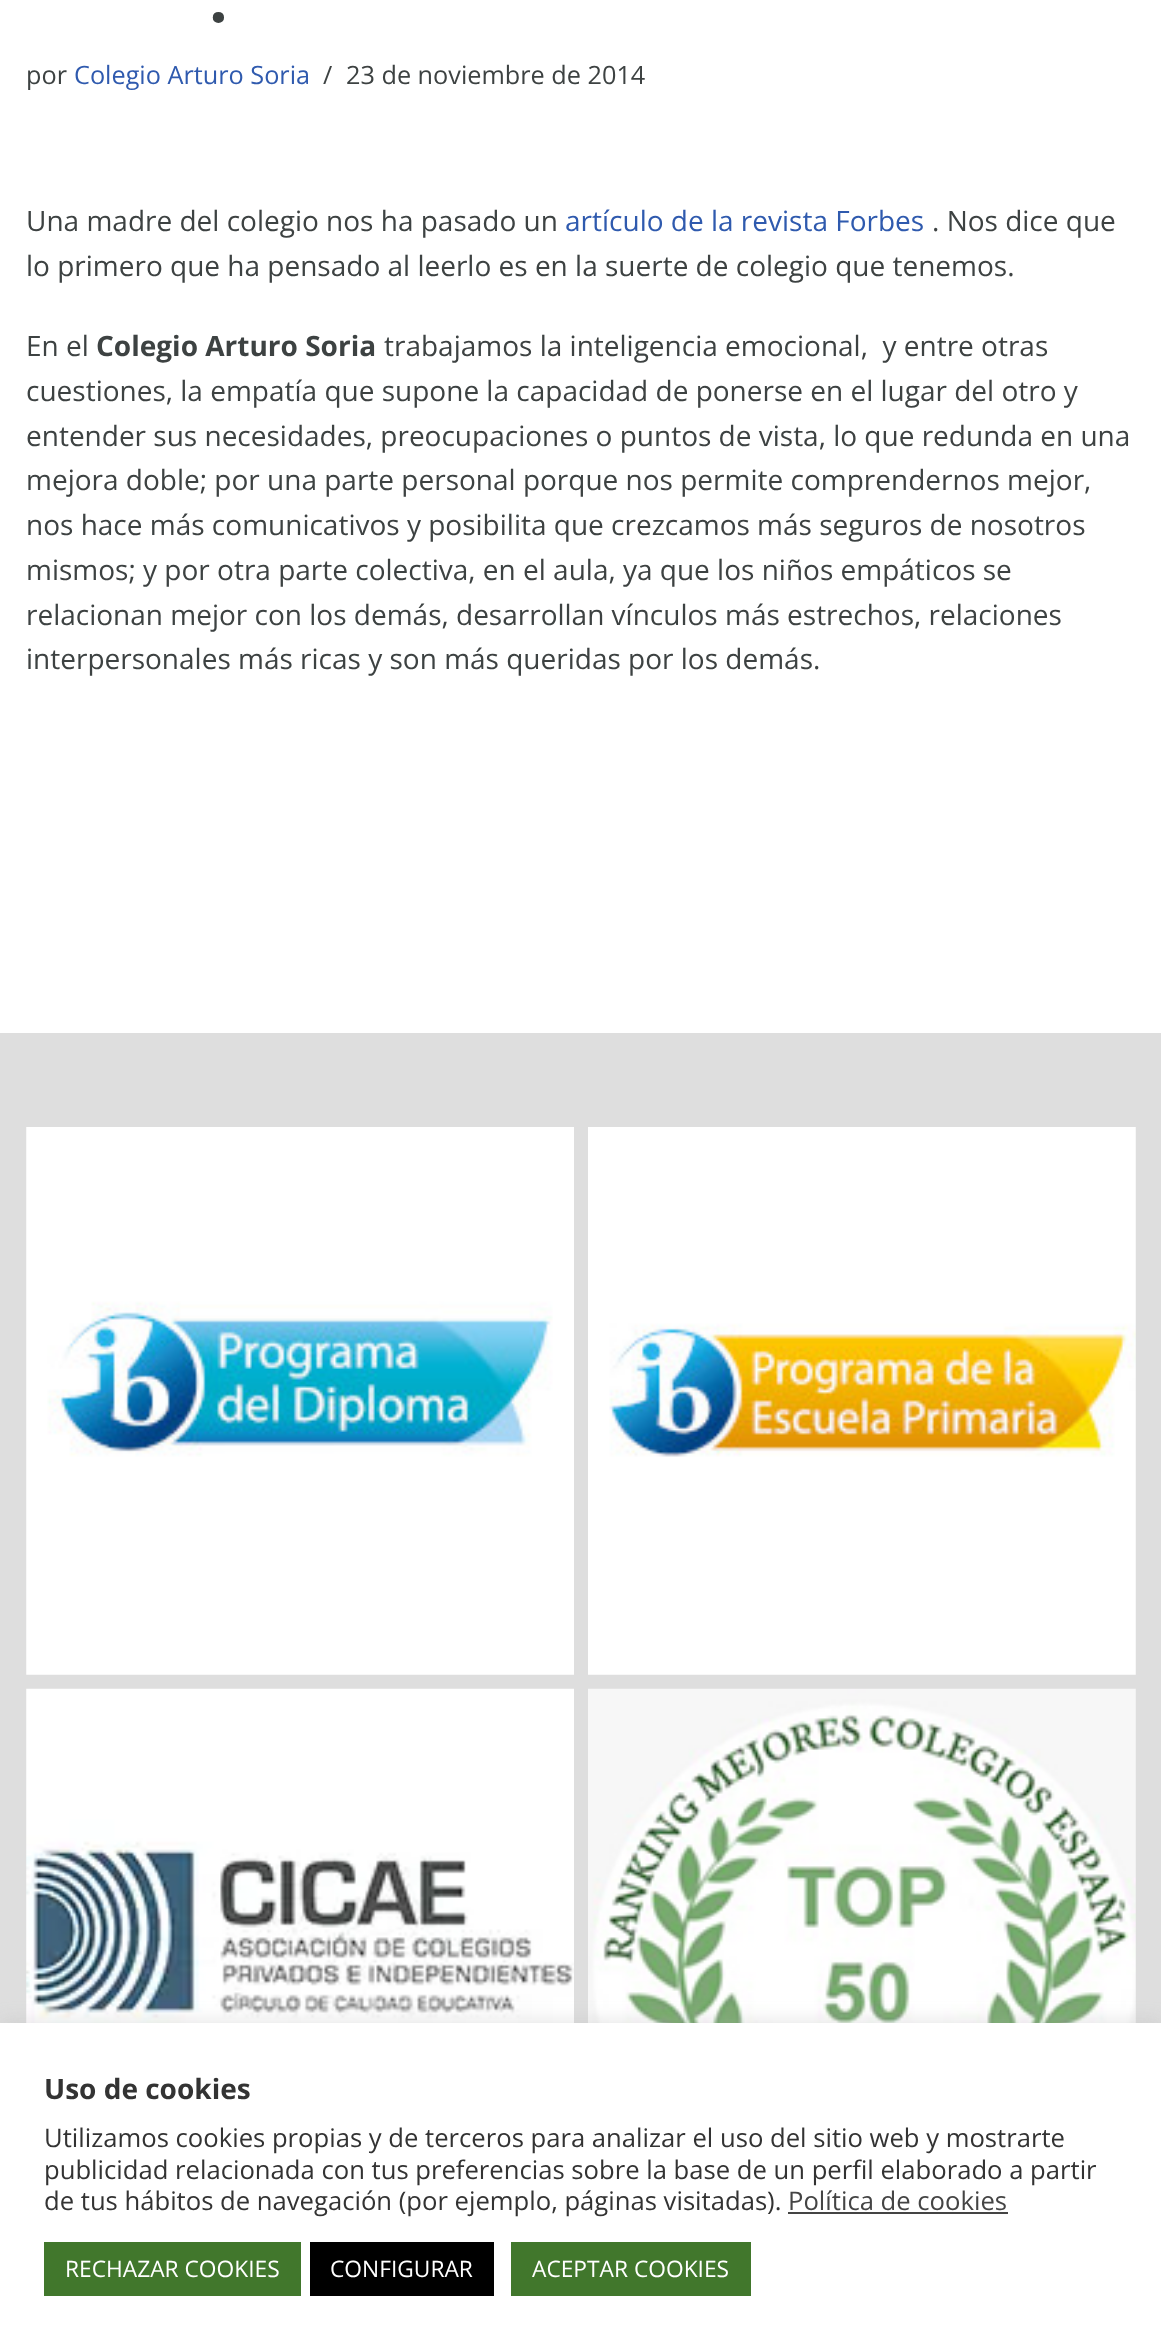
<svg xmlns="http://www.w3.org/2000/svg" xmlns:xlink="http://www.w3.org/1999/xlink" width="1161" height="2347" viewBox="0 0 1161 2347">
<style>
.cls-1{font:bold 66px Open Sans;fill:#3d4242}
.cls-2{font:25.25px Open Sans;fill:#3d4242}
.cls-3{font:25.25px Open Sans;fill:#2f5aae}
.cls-4{font:28px Open Sans;fill:#3d4242}
.cls-5{font:28px Open Sans;fill:#2f5aae}
.cls-6{font:bold 28px Open Sans;fill:#3d4242}
.cls-7{font:bold 28px Open Sans;fill:#333333}
.cls-8{font:25.65px Open Sans;fill:#333333}
.cls-9{font:25.65px Open Sans;fill:#444444}
.cls-10{font:22.75px Open Sans;fill:#ffffff}
</style>
<rect width="100%" height="100%" fill="#ffffff"/>
<rect fill="#dedede" x="0" y="1033" width="1161" height="990"/>
<image xlink:href="image0.png" x="26" y="1127" width="548" height="548"/>
<image xlink:href="image1.png" x="588" y="1127" width="548" height="548"/>
<image xlink:href="image2.png" x="26" y="1688" width="548" height="335"/>
<image xlink:href="image3.png" x="588" y="1688" width="548" height="335"/>
<rect fill="#acabab" fill-opacity="0.3" filter="blur(9px)" x="0" y="2021" width="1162" height="326"/>
<rect fill="#ffffff" x="0" y="2023" width="1161" height="324"/>
<rect fill="#444444" x="788" y="2212" width="220" height="2"/>
<rect fill="#41772c" x="44" y="2242" width="257" height="54"/>
<rect fill="#000000" x="310" y="2242" width="184" height="54"/>
<rect fill="#41772c" x="511" y="2242" width="240" height="54"/>
<text class="cls-1" x="209" y="22">.</text>
<text class="cls-2" x="26" y="84">por</text>
<text class="cls-3" x="74" y="84">Colegio Arturo Soria</text>
<text class="cls-2" x="323" y="84">/</text>
<text class="cls-2" x="346" y="84">23 de noviembre de 2014</text>
<text class="cls-4" x="26" y="231">Una madre del colegio nos ha pasado un</text>
<text class="cls-5" x="565" y="231">artículo de la revista Forbes</text>
<text class="cls-4" x="932" y="231">. Nos dice que</text>
<text class="cls-4" x="26" y="276">lo primero que ha pensado al leerlo es en la suerte de colegio que tenemos.</text>
<text class="cls-4" x="26" y="356">En el</text>
<text class="cls-6" x="96" y="356">Colegio Arturo Soria</text>
<text class="cls-4" xml:space="preserve" x="384" y="356">trabajamos la inteligencia emocional,  y entre otras</text>
<text class="cls-4"><tspan x="26" y="401">cuestiones, la empatía que supone la capacidad de ponerse en el lugar del otro y</tspan><tspan x="26" y="446">entender sus necesidades, preocupaciones o puntos de vista, lo que redunda en una</tspan><tspan x="26" y="490">mejora doble; por una parte personal porque nos permite comprendernos mejor,</tspan><tspan x="26" y="535">nos hace más comunicativos y posibilita que crezcamos más seguros de nosotros</tspan><tspan x="26" y="580">mismos; y por otra parte colectiva, en el aula, ya que los niños empáticos se</tspan><tspan x="26" y="625">relacionan mejor con los demás, desarrollan vínculos más estrechos, relaciones</tspan><tspan x="26" y="669">interpersonales más ricas y son más queridas por los demás.</tspan></text>
<text class="cls-7" x="44" y="2099">Uso de cookies</text>
<text class="cls-8"><tspan x="44" y="2147">Utilizamos cookies propias y de terceros para analizar el uso del sitio web y mostrarte</tspan><tspan x="44" y="2179">publicidad relacionada con tus preferencias sobre la base de un perfil elaborado a partir</tspan><tspan x="44" y="2210">de tus hábitos de navegación (por ejemplo, páginas visitadas).</tspan></text>
<text class="cls-9" x="788" y="2210">Política de cookies</text>
<text class="cls-10" x="65" y="2277">RECHAZAR COOKIES</text>
<text class="cls-10" x="330" y="2277">CONFIGURAR</text>
<text class="cls-10" x="532" y="2277">ACEPTAR COOKIES</text>
</svg>
